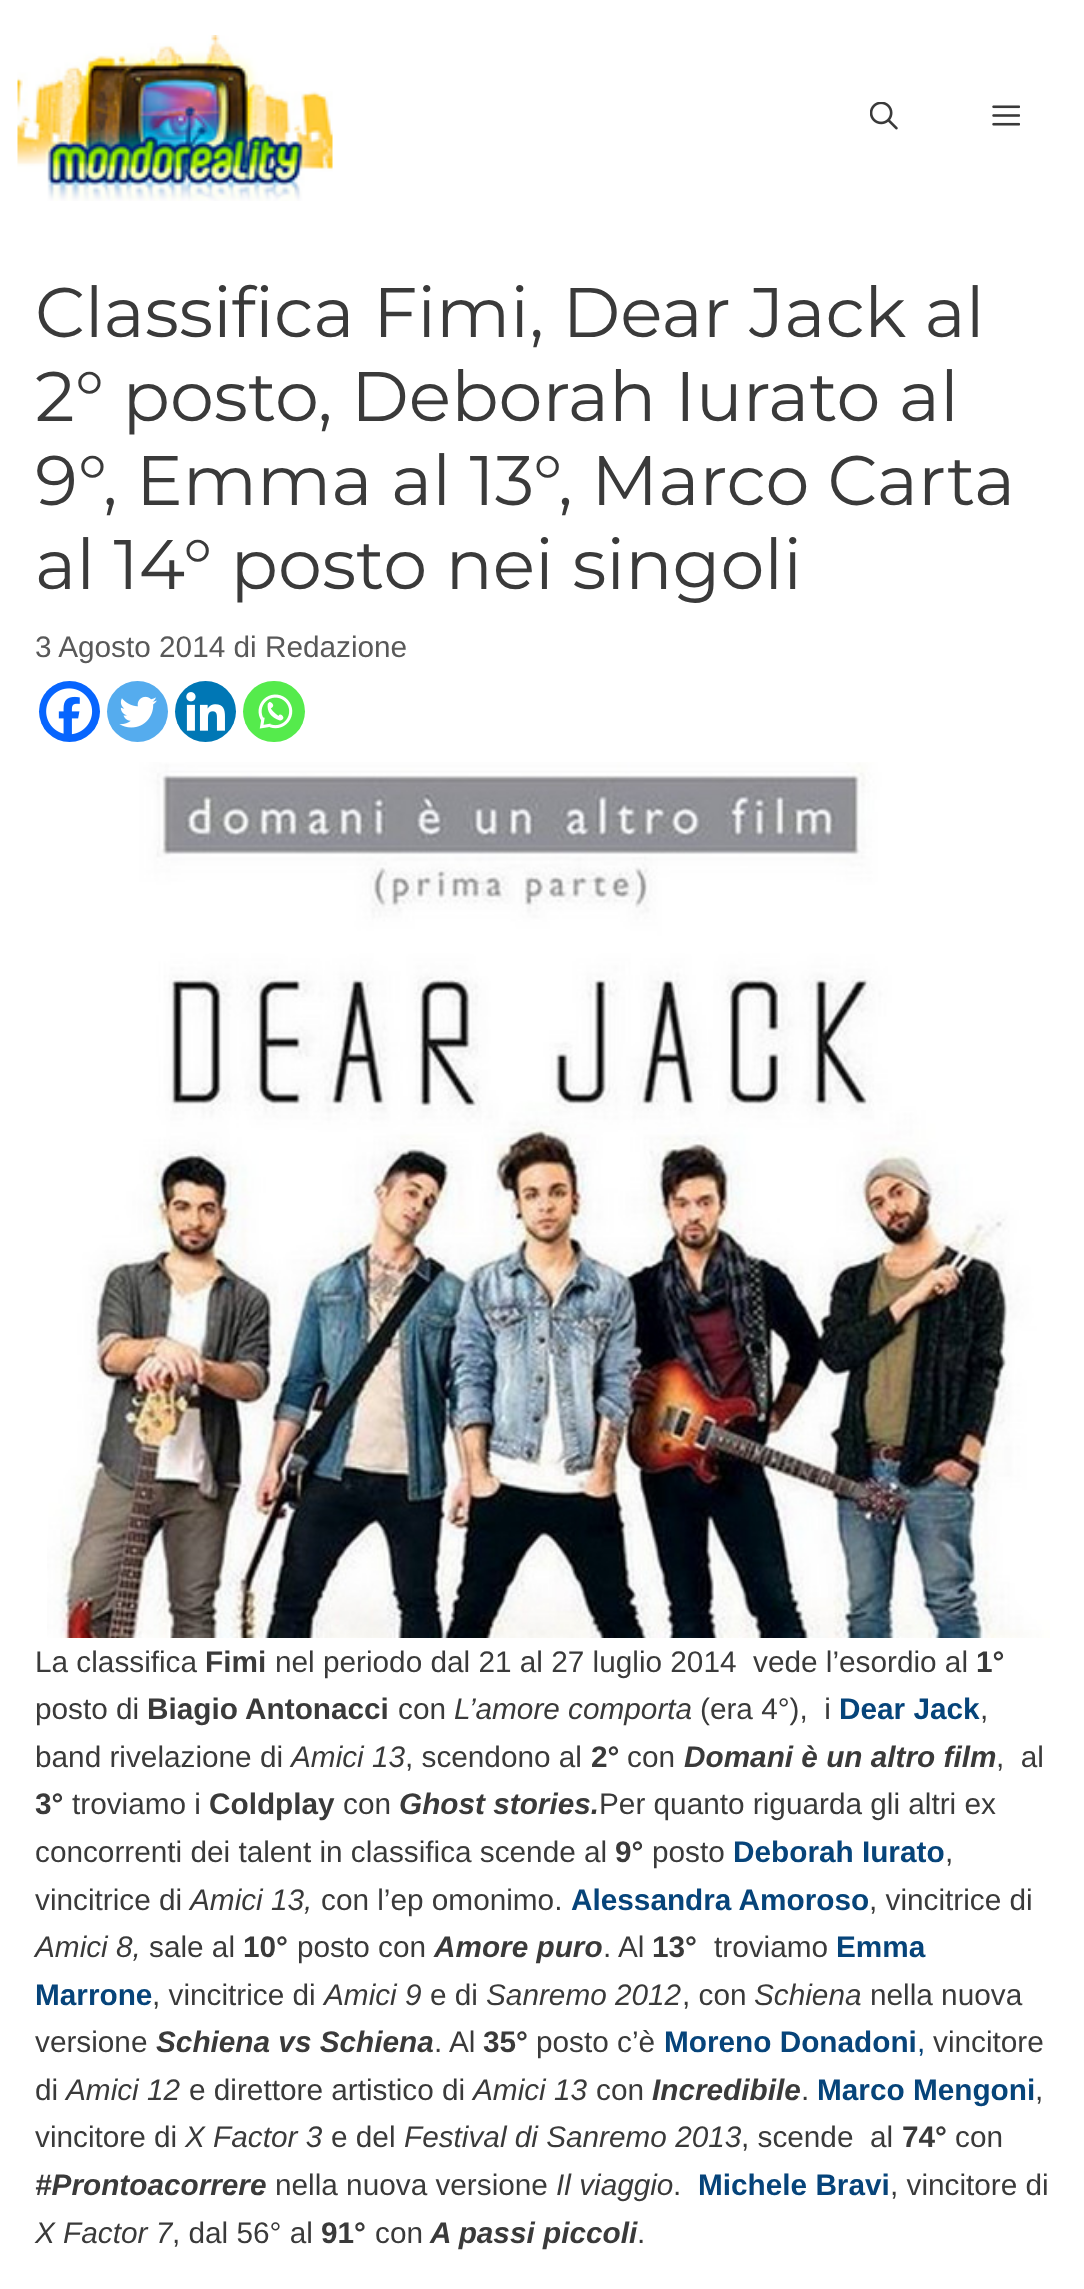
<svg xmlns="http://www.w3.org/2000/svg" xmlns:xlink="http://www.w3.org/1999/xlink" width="1084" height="2289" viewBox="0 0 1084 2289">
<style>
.cls-1{font:70px Montserrat;fill:#3a3a3a}
.cls-2{font:29.75px Liberation Sans;fill:#595959}
.cls-3{font:29.75px Liberation Sans;fill:#3a3a3a}
.cls-4{font:bold 29.75px Liberation Sans;fill:#3a3a3a}
.cls-5{font:italic 29.75px Liberation Sans;fill:#3a3a3a}
.cls-6{font:bold 29.75px Liberation Sans;fill:#06447a}
.cls-7{font:italic bold 29.75px Liberation Sans;fill:#3a3a3a}
.cls-8{font:29.75px Liberation Sans;fill:#06447a}
</style>
<rect width="100%" height="100%" fill="#ffffff"/>
<image xlink:href="image0.png" x="17" y="35" width="316" height="166"/>
<image xlink:href="image1.png" x="870" y="102" width="28" height="28"/>
<image xlink:href="image2.png" x="992" y="105" width="28" height="21"/>
<circle fill="#0765fe" cx="69.5" cy="711.5" r="30.5"/>
<image xlink:href="image3.png" x="46" y="688" width="47" height="47"/>
<circle fill="#55acee" cx="137.5" cy="711.5" r="30.5"/>
<image xlink:href="image4.png" x="119" y="696" width="38" height="32"/>
<circle fill="#0077b5" cx="205.5" cy="711.5" r="30.5"/>
<image xlink:href="image5.png" x="186" y="692" width="39" height="39"/>
<rect fill="#55eb4c" x="243" y="681" width="62" height="61" rx="30.5"/>
<image xlink:href="image6.png" x="258" y="694" width="35" height="35"/>
<image xlink:href="image7.png" x="47" y="762" width="1003" height="876"/>
<text class="cls-1"><tspan x="35" y="337">Classifica Fimi, Dear Jack al</tspan><tspan x="35" y="421">2° posto, Deborah Iurato al</tspan><tspan x="35" y="505">9°, Emma al 13°, Marco Carta</tspan><tspan x="35" y="589">al 14° posto nei singoli</tspan></text>
<text class="cls-2" x="35" y="657">3 Agosto 2014 di Redazione</text>
<text class="cls-3" x="35" y="1672">La classifica</text>
<text class="cls-4" x="205" y="1672">Fimi</text>
<text class="cls-3" xml:space="preserve" x="275" y="1672">nel periodo dal 21 al 27 luglio 2014  vede l’esordio al</text>
<text class="cls-4" x="976" y="1672">1°</text>
<text class="cls-3" x="35" y="1719">posto di</text>
<text class="cls-4" x="147" y="1719">Biagio Antonacci</text>
<text class="cls-3" x="398" y="1719">con</text>
<text class="cls-5" x="454" y="1719">L’amore comporta</text>
<text class="cls-3" xml:space="preserve" x="700" y="1719">(era 4°),  i</text>
<text class="cls-6" x="839" y="1719">Dear Jack</text>
<text class="cls-3" x="980" y="1719">,</text>
<text class="cls-3" x="35" y="1767">band rivelazione di</text>
<text class="cls-5" x="291" y="1767">Amici 13</text>
<text class="cls-3" x="405" y="1767">, scendono al</text>
<text class="cls-4" x="591" y="1767">2°</text>
<text class="cls-3" x="627" y="1767">con</text>
<text class="cls-7" x="684" y="1767">Domani è un altro film</text>
<text class="cls-3" xml:space="preserve" x="996" y="1767">,  al</text>
<text class="cls-4" x="35" y="1814">3°</text>
<text class="cls-3" x="72" y="1814">troviamo i</text>
<text class="cls-4" x="209" y="1814">Coldplay</text>
<text class="cls-3" x="343" y="1814">con</text>
<text class="cls-7" x="399" y="1814">Ghost stories.</text>
<text class="cls-3" x="599" y="1814">Per quanto riguarda gli altri ex</text>
<text class="cls-3" x="35" y="1862">concorrenti dei talent in classifica scende al</text>
<text class="cls-4" x="615" y="1862">9°</text>
<text class="cls-3" x="652" y="1862">posto</text>
<text class="cls-6" x="733" y="1862">Deborah Iurato</text>
<text class="cls-3" x="945" y="1862">,</text>
<text class="cls-3" x="35" y="1910">vincitrice di</text>
<text class="cls-5" x="190" y="1910">Amici 13,</text>
<text class="cls-3" x="321" y="1910">con l’ep omonimo.</text>
<text class="cls-6" x="571" y="1910">Alessandra Amoroso</text>
<text class="cls-3" x="869" y="1910">, vincitrice di</text>
<text class="cls-5" x="35" y="1957">Amici 8,</text>
<text class="cls-3" x="149" y="1957">sale al</text>
<text class="cls-4" x="243" y="1957">10°</text>
<text class="cls-3" x="297" y="1957">posto con</text>
<text class="cls-7" x="434" y="1957">Amore puro</text>
<text class="cls-3" x="603" y="1957">. Al</text>
<text class="cls-4" x="652" y="1957">13°</text>
<text class="cls-3" x="714" y="1957">troviamo</text>
<text class="cls-6" x="836" y="1957">Emma</text>
<text class="cls-6" x="35" y="2005">Marrone</text>
<text class="cls-3" x="152" y="2005">, vincitrice di</text>
<text class="cls-5" x="324" y="2005">Amici 9</text>
<text class="cls-3" x="430" y="2005">e di</text>
<text class="cls-5" x="486" y="2005">Sanremo 2012</text>
<text class="cls-3" x="682" y="2005">, con</text>
<text class="cls-5" x="754" y="2005">Schiena</text>
<text class="cls-3" x="870" y="2005">nella nuova</text>
<text class="cls-3" x="35" y="2052">versione</text>
<text class="cls-7" x="156" y="2052">Schiena vs Schiena</text>
<text class="cls-3" x="434" y="2052">. Al</text>
<text class="cls-4" x="483" y="2052">35°</text>
<text class="cls-3" x="536" y="2052">posto c’è</text>
<text class="cls-6" x="664" y="2052">Moreno Donadoni</text>
<text class="cls-8" x="917" y="2052">,</text>
<text class="cls-3" x="933" y="2052">vincitore</text>
<text class="cls-3" x="35" y="2100">di</text>
<text class="cls-5" x="66" y="2100">Amici 12</text>
<text class="cls-3" x="189" y="2100">e direttore artistico di</text>
<text class="cls-5" x="473" y="2100">Amici 13</text>
<text class="cls-3" x="596" y="2100">con</text>
<text class="cls-7" x="652" y="2100">Incredibile</text>
<text class="cls-3" x="801" y="2100">.</text>
<text class="cls-6" x="817" y="2100">Marco Mengoni</text>
<text class="cls-3" x="1035" y="2100">,</text>
<text class="cls-3" x="35" y="2147">vincitore di</text>
<text class="cls-5" x="185" y="2147">X Factor 3</text>
<text class="cls-3" x="331" y="2147">e del</text>
<text class="cls-5" x="404" y="2147">Festival di Sanremo 2013</text>
<text class="cls-3" xml:space="preserve" x="741" y="2147">, scende  al</text>
<text class="cls-4" x="902" y="2147">74°</text>
<text class="cls-3" x="955" y="2147">con</text>
<text class="cls-7" x="35" y="2195">#Prontoacorrere</text>
<text class="cls-3" x="275" y="2195">nella nuova versione</text>
<text class="cls-5" x="556" y="2195">Il viaggio</text>
<text class="cls-3" x="673" y="2195">.</text>
<text class="cls-6" x="698" y="2195">Michele Bravi</text>
<text class="cls-3" x="890" y="2195">, vincitore di</text>
<text class="cls-5" x="35" y="2243">X Factor 7</text>
<text class="cls-3" x="172" y="2243">, dal 56° al</text>
<text class="cls-4" x="321" y="2243">91°</text>
<text class="cls-3" x="375" y="2243">con</text>
<text class="cls-7" x="430" y="2243">A passi piccoli</text>
<text class="cls-3" x="637" y="2243">.</text>
</svg>
